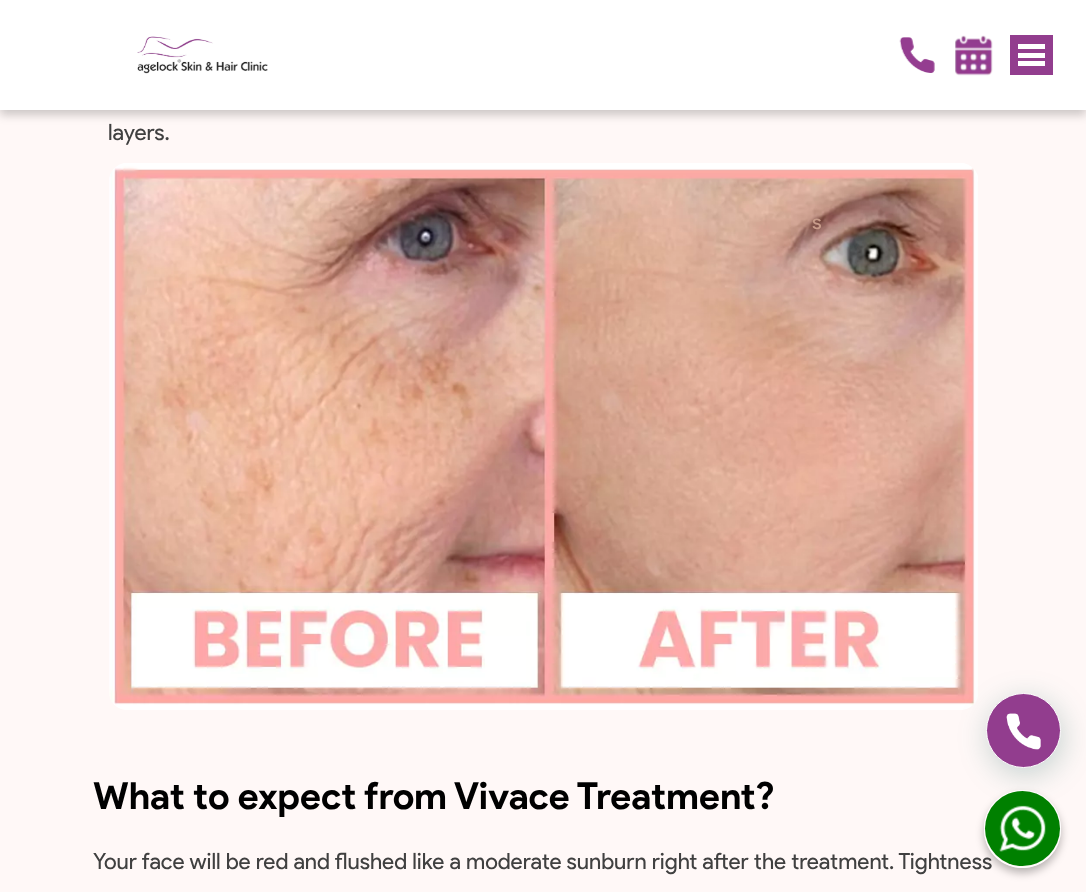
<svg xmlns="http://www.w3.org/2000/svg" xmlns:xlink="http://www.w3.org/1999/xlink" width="1086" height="892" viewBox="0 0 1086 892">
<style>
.cls-1{font:22.5px Product Sans;fill:#404040}
.cls-2{font:bold 37.5px Product Sans;fill:#000000}
.cls-3{font:21px Product Sans;fill:#c89c8a}
</style>
<defs>
<clipPath id="clip1"><path d="M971 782H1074V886H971ZM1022.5 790C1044 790 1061 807 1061 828.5V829.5C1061 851 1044 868 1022.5 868C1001 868 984 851 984 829.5V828.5C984 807 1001 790 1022.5 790Z" clip-rule="evenodd"/></clipPath>
</defs>
<rect width="100%" height="100%" fill="#fff8f7"/>
<image xlink:href="image0.png" x="109" y="163" width="869" height="547"/>
<rect fill="#000000" fill-opacity="0.2" filter="blur(5px)" x="0" y="5" width="1086" height="110"/>
<rect fill="#ffffff" x="0" y="0" width="1086" height="110"/>
<image xlink:href="image1.png" x="137" y="36" width="131" height="38"/>
<image xlink:href="image2.png" x="899" y="37" width="36" height="36"/>
<image xlink:href="image3.png" x="955" y="35" width="38" height="41"/>
<rect fill="#923d8e" x="1010" y="35" width="43" height="40"/>
<rect fill="#ffffff" x="1018" y="61" width="27" height="5"/>
<rect fill="#ffffff" x="1018" y="53" width="27" height="5"/>
<rect fill="#ffffff" x="1018" y="44" width="27" height="5"/>
<rect fill="#075e54" fill-opacity="0.24" filter="blur(15px)" x="988" y="700" width="75" height="75" rx="37.5"/>
<circle fill="#923d8e" stroke="#ffffff" cx="1023.5" cy="730.5" r="37"/>
<image xlink:href="image4.png" x="1006" y="713" width="35" height="37"/>
<g clip-path="url(#clip1)">
<rect fill="#000000" fill-opacity="0.28" filter="blur(4px)" x="984" y="795" width="77" height="78" rx="38.5"/>
</g>
<text class="cls-1" x="108" y="140">layers.</text>
<text class="cls-2" x="93" y="809">What to expect from Vivace Treatment?</text>
<text class="cls-1" x="93" y="869" word-spacing="0.1">Your face will be red and flushed like a moderate sunburn right after the treatment. Tightness</text>
<text class="cls-3" x="812" y="229">s</text>
<rect fill="none" stroke="#ffffff" x="984.5" y="790.5" width="76" height="77" rx="38"/>
<circle fill="#008000" cx="1022.5" cy="828.5" r="37.5"/>
<image xlink:href="image5.png" x="999" y="805" width="47" height="47"/>
</svg>
